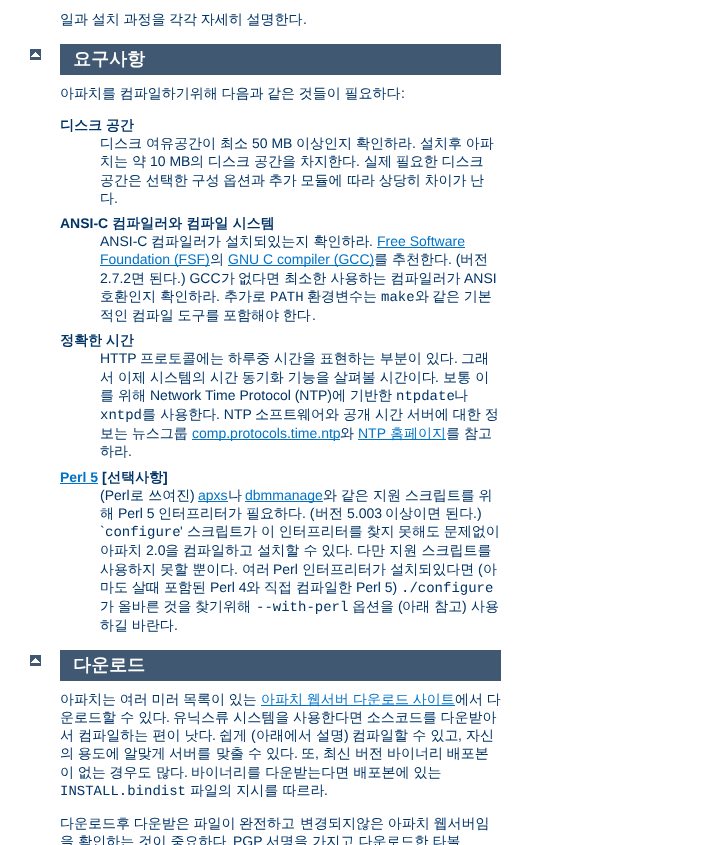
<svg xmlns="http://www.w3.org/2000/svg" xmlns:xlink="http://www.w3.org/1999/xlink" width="727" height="845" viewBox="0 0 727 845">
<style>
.cls-1{font:500 14px WenQuanYi Zen Hei;fill:#003366}
.cls-2{font:14px Liberation Sans;fill:#003366}
.cls-3{font:bold 18px WenQuanYi Zen Hei;fill:#ffffff}
.cls-4{font:bold 14px WenQuanYi Zen Hei;fill:#003366}
.cls-5{font:bold 14px Liberation Sans;fill:#003366}
.cls-6{font:14px Liberation Sans;fill:#0073c7}
.cls-7{font:14px Liberation Mono;fill:#003366}
.cls-8{font:500 14px WenQuanYi Zen Hei;fill:#0073c7}
.cls-9{font:bold 14px Liberation Sans;fill:#0073c7}
</style>
<rect width="100%" height="100%" fill="#ffffff"/>
<image xlink:href="image0.png" x="30" y="49" width="11" height="11"/>
<rect fill="#405871" x="60" y="44" width="441" height="31"/>
<rect fill="#0073c7" x="377" y="247" width="88" height="1"/>
<rect fill="#0073c7" x="100" y="265" width="110" height="1"/>
<rect fill="#0073c7" x="228" y="265" width="146" height="1"/>
<rect fill="#0073c7" x="192" y="439" width="148" height="1"/>
<rect fill="#0073c7" x="358" y="439" width="88" height="1"/>
<rect fill="#0073c7" x="60" y="483" width="38" height="1"/>
<rect fill="#0073c7" x="198" y="501" width="30" height="1"/>
<rect fill="#0073c7" x="245" y="501" width="78" height="1"/>
<image xlink:href="image0.png" x="30" y="655" width="11" height="11"/>
<rect fill="#405871" x="60" y="650" width="441" height="31"/>
<rect fill="#0073c7" x="261" y="705" width="194" height="1"/>
<text class="cls-1" x="60" y="24" word-spacing="-0.5">일과 설치 과정을 각각 자세히 설명한다</text>
<text class="cls-2" x="303" y="24">.</text>
<text class="cls-3" x="73" y="65">요구사항</text>
<text class="cls-1" x="60" y="98" word-spacing="-0.5">아파치를 컴파일하기위해 다음과 같은 것들이 필요하다</text>
<text class="cls-2" x="401" y="98">:</text>
<text class="cls-4" x="60" y="130" word-spacing="-0.5">디스크 공간</text>
<text class="cls-1" x="100" y="148">디스크</text>
<text class="cls-1" x="146" y="148">여유공간이</text>
<text class="cls-1" x="220" y="148">최소</text>
<text class="cls-2" x="252" y="148">50 MB</text>
<text class="cls-1" x="296" y="148">이상인지</text>
<text class="cls-1" x="356" y="148">확인하라</text>
<text class="cls-2" x="412" y="148">.</text>
<text class="cls-1" x="420" y="148" word-spacing="-0.5">설치후 아파</text>
<text class="cls-1" x="100" y="166">치는</text>
<text class="cls-1" x="132" y="166">약</text>
<text class="cls-2" x="150" y="166">10 MB</text>
<text class="cls-1" x="190" y="166">의</text>
<text class="cls-1" x="208" y="166">디스크</text>
<text class="cls-1" x="254" y="166">공간을</text>
<text class="cls-1" x="300" y="166">차지한다</text>
<text class="cls-2" x="356" y="166">.</text>
<text class="cls-1" x="364" y="166" word-spacing="-0.5">실제 필요한 디스크</text>
<text class="cls-1" x="100" y="185" word-spacing="-0.5">공간은 선택한 구성 옵션과 추가 모듈에</text>
<text class="cls-1" x="347" y="185" word-spacing="-0.5">따라 상당히 차이가 난</text>
<text class="cls-1" x="100" y="203">다</text>
<text class="cls-2" x="114" y="203">.</text>
<text class="cls-5" x="60" y="228">ANSI-C</text>
<text class="cls-4" x="112" y="228">컴파일러와 컴파일 시스템</text>
<text class="cls-2" x="100" y="246">ANSI-C</text>
<text class="cls-1" x="151" y="246">컴파일러가 설치되있는지 확인하라</text>
<text class="cls-2" x="369" y="246">.</text>
<text class="cls-6" x="377" y="246">Free Software</text>
<text class="cls-6" x="100" y="264">Foundation (FSF)</text>
<text class="cls-1" x="210" y="264">의</text>
<text class="cls-6" x="228" y="264">GNU C compiler (GCC)</text>
<text class="cls-1" x="374" y="264">를</text>
<text class="cls-1" x="392" y="264">추천한다</text>
<text class="cls-2" x="448" y="264">. (</text>
<text class="cls-1" x="460" y="264">버전</text>
<text class="cls-2" x="100" y="283">2.7.2</text>
<text class="cls-1" x="131" y="283">면</text>
<text class="cls-1" x="149" y="283">된다</text>
<text class="cls-2" x="177" y="283">.) GCC</text>
<text class="cls-1" x="221" y="283">가</text>
<text class="cls-1" x="238" y="283">없다면 최소한 사용하는 컴파일러가</text>
<text class="cls-2" x="464" y="283">ANSI</text>
<text class="cls-1" x="100" y="301">호환인지 확인하라</text>
<text class="cls-2" x="216" y="301">.</text>
<text class="cls-1" x="224" y="301">추가로</text>
<text class="cls-7" x="270" y="301">PATH</text>
<text class="cls-1" x="307" y="301">환경변수는</text>
<text class="cls-7" x="381" y="301">make</text>
<text class="cls-1" x="415" y="301">와</text>
<text class="cls-1" x="432" y="301" word-spacing="-0.5">같은 기본</text>
<text class="cls-1" x="100" y="320" word-spacing="-0.5">적인 컴파일 도구를 포함해야 한다</text>
<text class="cls-2" x="312" y="320">.</text>
<text class="cls-4" x="60" y="345" word-spacing="-0.5">정확한 시간</text>
<text class="cls-2" x="100" y="363">HTTP</text>
<text class="cls-1" x="140" y="363" word-spacing="-0.25">프로토콜에는 하루중 시간을 표현하는 부분이 있다</text>
<text class="cls-2" x="454" y="363">.</text>
<text class="cls-1" x="461" y="363">그래</text>
<text class="cls-1" x="100" y="382">서</text>
<text class="cls-1" x="118" y="382" word-spacing="-0.25">이제 시스템의 시간 동기화 기능을 살펴볼 시간이다</text>
<text class="cls-2" x="435" y="382">.</text>
<text class="cls-1" x="443" y="382">보통 이</text>
<text class="cls-1" x="100" y="400">를</text>
<text class="cls-1" x="118" y="400">위해</text>
<text class="cls-2" x="150" y="400">Network Time Protocol (NTP)</text>
<text class="cls-1" x="332" y="400">에</text>
<text class="cls-1" x="350" y="400">기반한</text>
<text class="cls-7" x="396" y="400">ntpdate</text>
<text class="cls-1" x="454" y="400">나</text>
<text class="cls-7" x="100" y="419">xntpd</text>
<text class="cls-1" x="142" y="419">를 사용한다</text>
<text class="cls-2" x="216" y="419">. NTP</text>
<text class="cls-1" x="255" y="419" word-spacing="-0.25">소프트웨어와 공개 시간 서버에 대한 정</text>
<text class="cls-1" x="100" y="438" word-spacing="-0.5">보는 뉴스그룹</text>
<text class="cls-6" x="192" y="438">comp.protocols.time.ntp</text>
<text class="cls-1" x="340" y="438">와</text>
<text class="cls-6" x="358" y="438">NTP</text>
<text class="cls-8" x="390" y="438">홈페이지</text>
<text class="cls-1" x="446" y="438">를</text>
<text class="cls-1" x="464" y="438">참고</text>
<text class="cls-1" x="100" y="456">하라</text>
<text class="cls-2" x="128" y="456">.</text>
<text class="cls-9" x="60" y="482">Perl 5</text>
<text class="cls-5" x="102" y="482">[</text>
<text class="cls-4" x="107" y="482">선택사항</text>
<text class="cls-5" x="163" y="482">]</text>
<text class="cls-2" x="100" y="500">(Perl</text>
<text class="cls-1" x="130" y="500">로 쓰여진</text>
<text class="cls-2" x="190" y="500">)</text>
<text class="cls-6" x="198" y="500">apxs</text>
<text class="cls-1" x="228" y="500">나</text>
<text class="cls-6" x="245" y="500">dbmmanage</text>
<text class="cls-1" x="323" y="500" word-spacing="-0.5">와 같은</text>
<text class="cls-1" x="373" y="500" word-spacing="-0.5">지원 스크립트를 위</text>
<text class="cls-1" x="100" y="518">해</text>
<text class="cls-2" x="118" y="518">Perl 5</text>
<text class="cls-1" x="158" y="518">인터프리터가</text>
<text class="cls-1" x="246" y="518">필요하다</text>
<text class="cls-2" x="302" y="518">. (</text>
<text class="cls-1" x="315" y="518">버전</text>
<text class="cls-2" x="347" y="518">5.003</text>
<text class="cls-1" x="385" y="518">이상이면 된다</text>
<text class="cls-2" x="473" y="518">.)</text>
<text class="cls-2" x="100" y="536">`</text>
<text class="cls-7" x="105" y="536">configure</text>
<text class="cls-2" x="180" y="536">'</text>
<text class="cls-1" x="187" y="536">스크립트가</text>
<text class="cls-1" x="261" y="536" word-spacing="-0.5">이 인터프리터를 찾지 못해도 문제없이</text>
<text class="cls-1" x="100" y="555">아파치</text>
<text class="cls-2" x="146" y="555">2.0</text>
<text class="cls-1" x="165" y="555">을</text>
<text class="cls-1" x="183" y="555">컴파일하고 설치할 수 있다</text>
<text class="cls-2" x="349" y="555">.</text>
<text class="cls-1" x="357" y="555">다만 지원 스크립트를</text>
<text class="cls-1" x="100" y="574">사용하지</text>
<text class="cls-1" x="160" y="574">못할 뿐이다</text>
<text class="cls-2" x="234" y="574">.</text>
<text class="cls-1" x="242" y="574">여러</text>
<text class="cls-2" x="273" y="574">Perl</text>
<text class="cls-1" x="302" y="574">인터프리터가 설치되있다면</text>
<text class="cls-2" x="478" y="574">(</text>
<text class="cls-1" x="483" y="574">아</text>
<text class="cls-1" x="100" y="592">마도</text>
<text class="cls-1" x="132" y="592">살때</text>
<text class="cls-1" x="164" y="592">포함된</text>
<text class="cls-2" x="210" y="592">Perl 4</text>
<text class="cls-1" x="246" y="592">와</text>
<text class="cls-1" x="264" y="592">직접</text>
<text class="cls-1" x="296" y="592">컴파일한</text>
<text class="cls-2" x="356" y="592">Perl 5)</text>
<text class="cls-7" x="401" y="592">./configure</text>
<text class="cls-1" x="100" y="611" word-spacing="-0.5">가 올바른 것을 찾기위해</text>
<text class="cls-7" x="256" y="611">--with-perl</text>
<text class="cls-1" x="352" y="611">옵션을</text>
<text class="cls-2" x="398" y="611">(</text>
<text class="cls-1" x="402" y="611">아래 참고</text>
<text class="cls-2" x="462" y="611">)</text>
<text class="cls-1" x="471" y="611">사용</text>
<text class="cls-1" x="100" y="630" word-spacing="-0.5">하길 바란다</text>
<text class="cls-2" x="174" y="630">.</text>
<text class="cls-3" x="73" y="671">다운로드</text>
<text class="cls-1" x="60" y="704" word-spacing="-0.5">아파치는 여러 미러 목록이 있는</text>
<text class="cls-8" x="261" y="704" word-spacing="-0.5">아파치 웹서버</text>
<text class="cls-8" x="353" y="704" word-spacing="-0.5">다운로드 사이트</text>
<text class="cls-1" x="455" y="704" word-spacing="-0.5">에서 다</text>
<text class="cls-1" x="60" y="722">운로드할 수 있다</text>
<text class="cls-2" x="166" y="722">.</text>
<text class="cls-1" x="173" y="722">유닉스류 시스템을</text>
<text class="cls-1" x="293" y="722" word-spacing="-0.5">사용한다면 소스코드를 다운받아</text>
<text class="cls-1" x="60" y="740">서 컴파일하는 편이 낫다</text>
<text class="cls-2" x="212" y="740">.</text>
<text class="cls-1" x="219" y="740">쉽게</text>
<text class="cls-2" x="251" y="740">(</text>
<text class="cls-1" x="256" y="740">아래에서 설명</text>
<text class="cls-2" x="344" y="740">)</text>
<text class="cls-1" x="352" y="740">컴파일할 수 있고</text>
<text class="cls-2" x="458" y="740">,</text>
<text class="cls-1" x="466" y="740">자신</text>
<text class="cls-1" x="60" y="758" word-spacing="-0.5">의 용도에 알맞게 서버를</text>
<text class="cls-1" x="216" y="758" word-spacing="-0.25">맞출 수 있다</text>
<text class="cls-2" x="294" y="758">.</text>
<text class="cls-1" x="301" y="758">또</text>
<text class="cls-2" x="315" y="758">,</text>
<text class="cls-1" x="323" y="758" word-spacing="-0.25">최신 버전 바이너리 배포본</text>
<text class="cls-1" x="60" y="777" word-spacing="-0.5">이 없는 경우도</text>
<text class="cls-1" x="156" y="777">많다</text>
<text class="cls-2" x="184" y="777">.</text>
<text class="cls-1" x="191" y="777">바이너리를 다운받는다면 배포본에 있는</text>
<text class="cls-7" x="60" y="795">INSTALL.bindist</text>
<text class="cls-1" x="190" y="795">파일의 지시를 따르라</text>
<text class="cls-2" x="324" y="795">.</text>
<text class="cls-1" x="60" y="828" word-spacing="-0.5">다운로드후 다운받은 파일이 완전하고</text>
<text class="cls-1" x="300" y="828" word-spacing="-0.5">변경되지않은 아파치 웹서버임</text>
<text class="cls-1" x="60" y="846">을 확인하는 것이 중요하다</text>
<text class="cls-2" x="233" y="846">PGP</text>
<text class="cls-1" x="266" y="846">서명을 가지고 다운로드한 타볼</text>
</svg>
